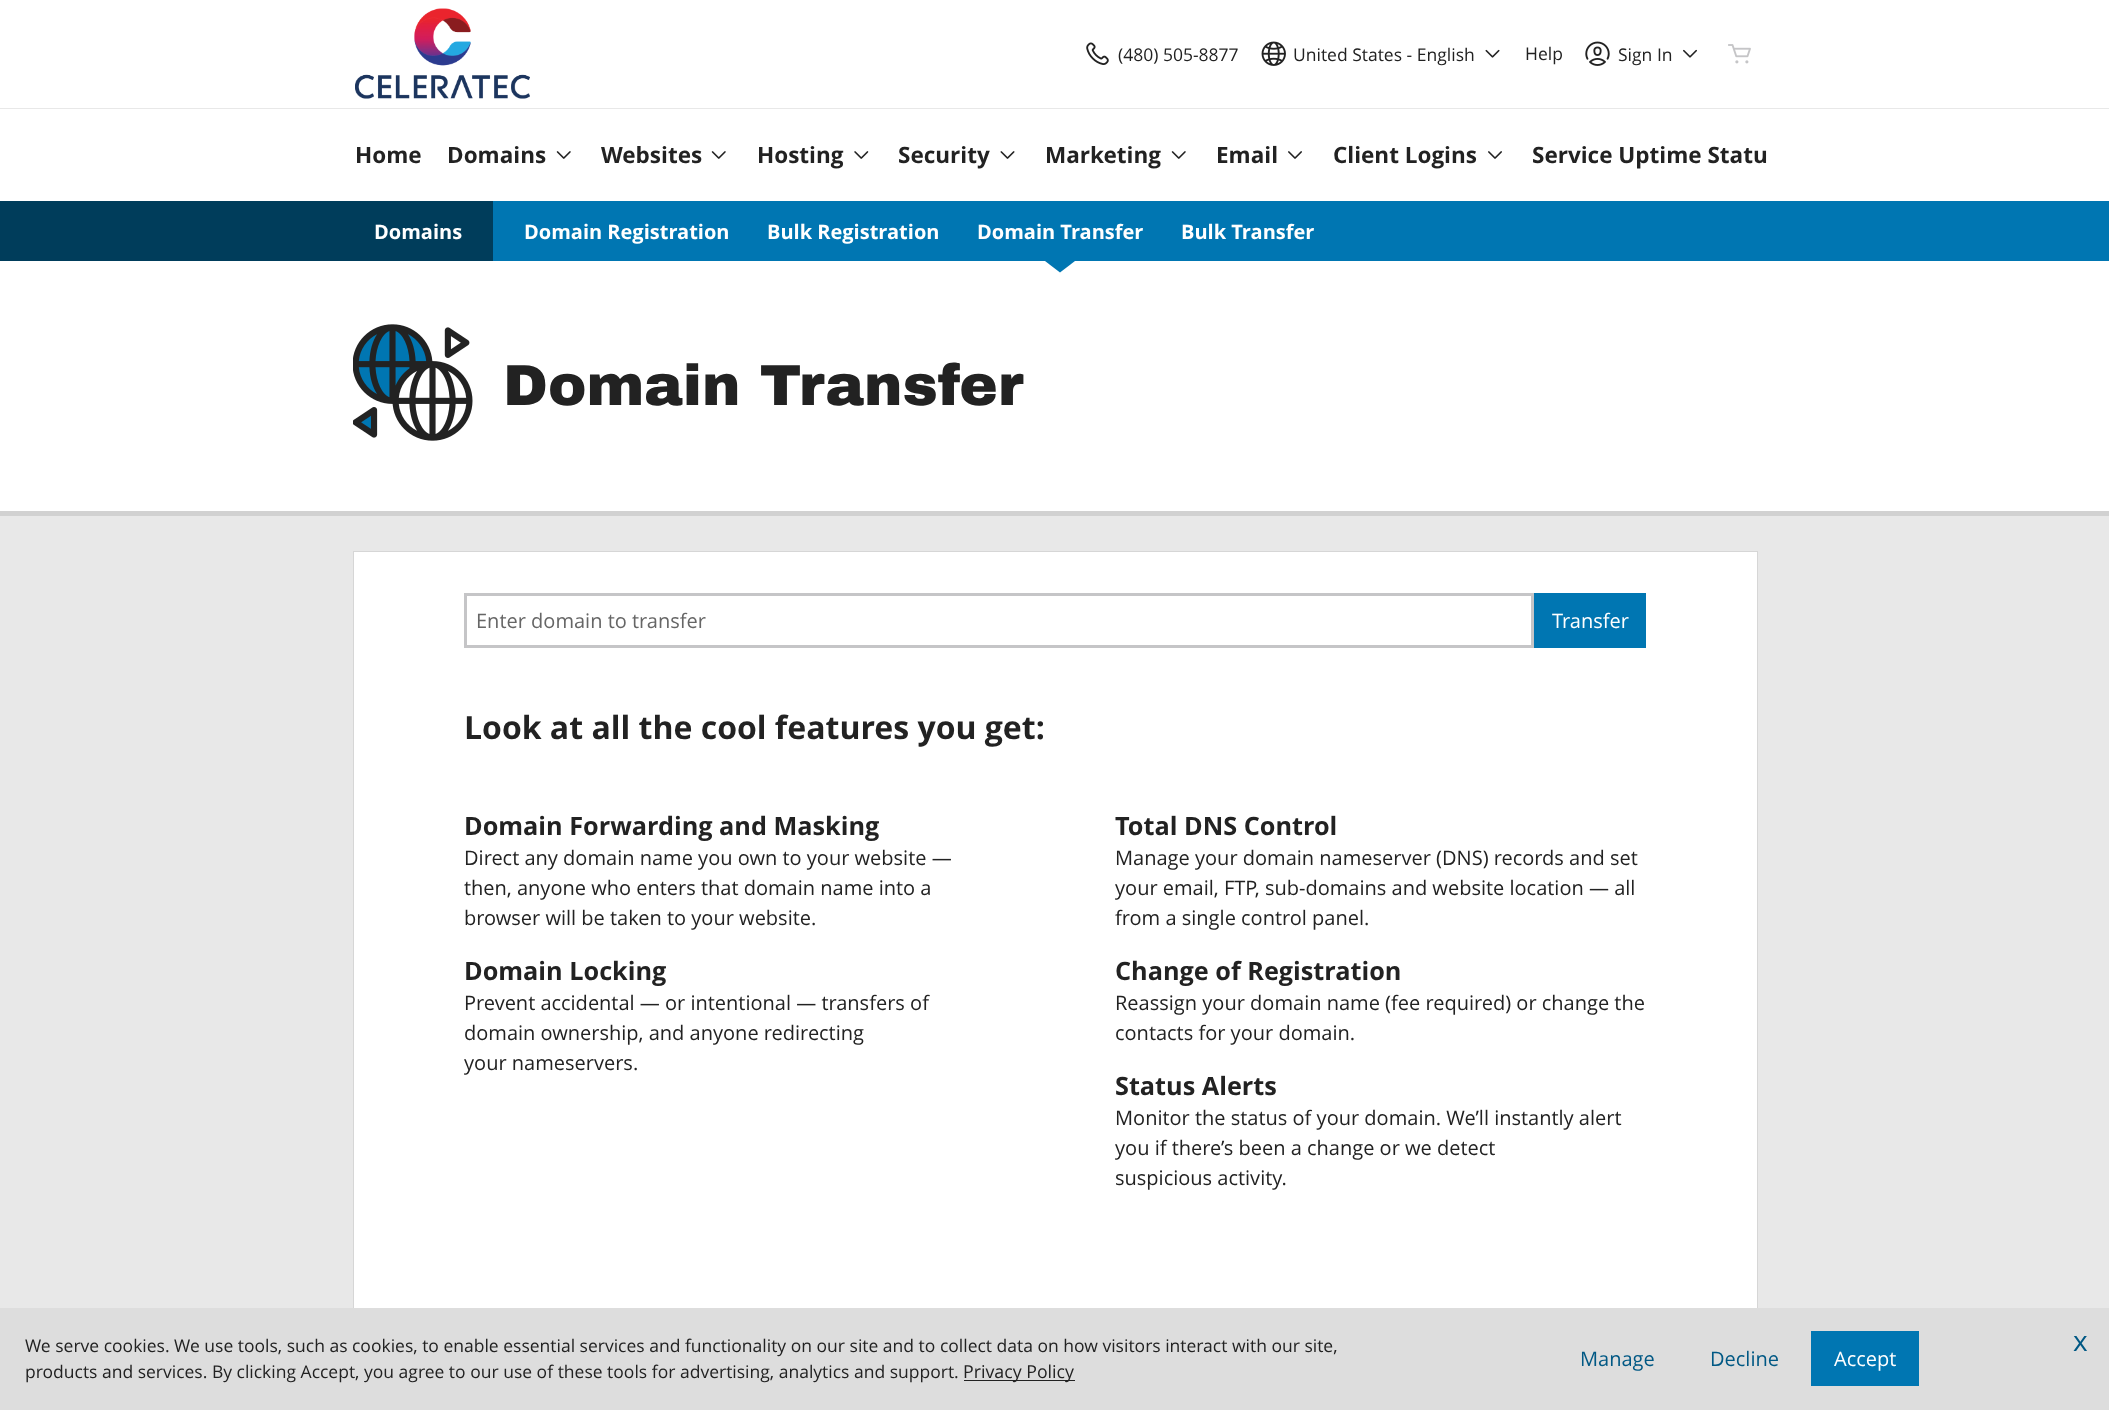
<svg xmlns="http://www.w3.org/2000/svg" xmlns:xlink="http://www.w3.org/1999/xlink" width="2109" height="1410" viewBox="0 0 2109 1410">
<style>
.cls-1{font:17.5px Open Sans;fill:#222222}
.cls-2{font:bold 22.5px Open Sans;fill:#222222}
.cls-3{font:bold 20px Open Sans;fill:#ffffff}
.cls-4{font:900 57.75px Archivo Black;fill:#222222}
.cls-5{font:20px Open Sans;fill:#666666}
.cls-6{font:20px Open Sans;fill:#ffffff}
.cls-7{font:bold 32px Open Sans;fill:#222222}
.cls-8{font:bold 25.25px Open Sans;fill:#222222}
.cls-9{font:20px Open Sans;fill:#222222}
.cls-10{font:17.75px Open Sans;fill:#222222}
.cls-11{font:20px Open Sans;fill:#005884}
.cls-12{font:28px Open Sans;fill:#005884}
</style>
<rect width="100%" height="100%" fill="#e8e8e8"/>
<rect fill="#ffffff" x="0" y="0" width="2109" height="108"/>
<image xlink:href="image0.png" x="355" y="8" width="175" height="91"/>
<image xlink:href="image1.png" x="1086" y="42" width="23" height="23"/>
<image xlink:href="image2.png" x="1261" y="41" width="25" height="25"/>
<image xlink:href="image3.png" x="1485" y="49" width="15" height="9"/>
<image xlink:href="image4.png" x="1585" y="41" width="25" height="25"/>
<image xlink:href="image5.png" x="1683" y="49" width="14" height="9"/>
<image xlink:href="image6.png" x="1728" y="44" width="23" height="20"/>
<rect fill="#ffffff" x="0" y="109" width="2109" height="92"/>
<image xlink:href="image7.png" x="556" y="151" width="15" height="8"/>
<image xlink:href="image7.png" x="711" y="151" width="15" height="8"/>
<image xlink:href="image8.png" x="854" y="151" width="15" height="8"/>
<image xlink:href="image9.png" x="1000" y="151" width="15" height="8"/>
<image xlink:href="image7.png" x="1171" y="151" width="15" height="8"/>
<image xlink:href="image10.png" x="1288" y="151" width="14" height="8"/>
<image xlink:href="image10.png" x="1488" y="151" width="14" height="8"/>
<rect fill="#0076b2" x="493" y="201" width="1616" height="60"/>
<rect fill="#003d5b" x="0" y="201" width="493" height="60"/>
<rect fill="#ffffff" x="0" y="261" width="2109" height="250"/>
<path fill="#0076b2" d="M1045 261H1075L1060 272.5Z"/>
<rect fill="#d1d1d1" x="0" y="511" width="2109" height="5"/>
<image xlink:href="image11.png" x="353" y="324" width="120" height="117"/>
<rect fill="#ffffff" x="354" y="552" width="1403" height="756"/>
<rect fill="none" stroke="#d6d6d6" x="353.5" y="551.5" width="1404" height="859"/>
<rect fill="none" stroke="#c5c5c7" stroke-width="3" x="465.5" y="594.5" width="1067" height="52"/>
<rect fill="#0076b2" x="1534" y="593" width="112" height="55"/>
<rect fill="#dddddd" x="0" y="1308" width="2109" height="102"/>
<rect fill="#222222" x="964" y="1380" width="111" height="1"/>
<rect fill="#0076b2" x="1811" y="1331" width="108" height="55"/>
<text class="cls-1" x="1118" y="61">(480) 505-8877</text>
<text class="cls-1" x="1293" y="61">United States - English</text>
<text class="cls-1" x="1525" y="60">Help</text>
<text class="cls-1" x="1618" y="61">Sign In</text>
<text class="cls-2" x="355" y="163">Home</text>
<text class="cls-2" x="447" y="163">Domains</text>
<text class="cls-2" x="601" y="163">Websites</text>
<text class="cls-2" x="757" y="163">Hosting</text>
<text class="cls-2" x="898" y="163">Security</text>
<text class="cls-2" x="1045" y="163">Marketing</text>
<text class="cls-2" x="1216" y="163">Email</text>
<text class="cls-2" x="1333" y="163">Client Logins</text>
<text class="cls-2" x="1532" y="163">Service Uptime Statu</text>
<text class="cls-3" x="374" y="239">Domains</text>
<text class="cls-3" x="524" y="239">Domain Registration</text>
<text class="cls-3" x="767" y="239">Bulk Registration</text>
<text class="cls-3" x="977" y="239">Domain Transfer</text>
<text class="cls-3" x="1181" y="239">Bulk Transfer</text>
<text class="cls-4" x="503" y="405">Domain Transfer</text>
<text class="cls-5" x="476" y="628">Enter domain to transfer</text>
<text class="cls-6" x="1552" y="628">Transfer</text>
<text class="cls-7" x="464" y="739">Look at all the cool features you get:</text>
<text class="cls-8" x="464" y="835">Domain Forwarding and Masking</text>
<text class="cls-9"><tspan x="464" y="865">Direct any domain name you own to your website —</tspan><tspan x="464" y="895">then, anyone who enters that domain name into a</tspan><tspan x="464" y="925">browser will be taken to your website.</tspan></text>
<text class="cls-8" x="1115" y="835">Total DNS Control</text>
<text class="cls-9"><tspan x="1115" y="865">Manage your domain nameserver (DNS) records and set</tspan><tspan x="1115" y="895">your email, FTP, sub-domains and website location — all</tspan><tspan x="1115" y="925">from a single control panel.</tspan></text>
<text class="cls-8" x="464" y="980">Domain Locking</text>
<text class="cls-9"><tspan x="464" y="1010">Prevent accidental — or intentional — transfers of</tspan><tspan x="464" y="1040">domain ownership, and anyone redirecting</tspan><tspan x="464" y="1070">your nameservers.</tspan></text>
<text class="cls-8" x="1115" y="980">Change of Registration</text>
<text class="cls-9"><tspan x="1115" y="1010">Reassign your domain name (fee required) or change the</tspan><tspan x="1115" y="1040">contacts for your domain.</tspan></text>
<text class="cls-8" x="1115" y="1095">Status Alerts</text>
<text class="cls-9"><tspan x="1115" y="1125">Monitor the status of your domain. We’ll instantly alert</tspan><tspan x="1115" y="1155">you if there’s been a change or we detect</tspan><tspan x="1115" y="1185">suspicious activity.</tspan></text>
<text class="cls-1"><tspan x="25" y="1352">We serve cookies. We use tools, such as cookies, to enable essential services and functionality on our site and to collect data on how visitors interact with our site,</tspan><tspan x="25" y="1378">products and services. By clicking Accept, you agree to our use of these tools for advertising, analytics and support.</tspan></text>
<text class="cls-10" x="963" y="1378">Privacy Policy</text>
<text class="cls-11" x="1580" y="1366">Manage</text>
<text class="cls-11" x="1710" y="1366">Decline</text>
<text class="cls-6" x="1834" y="1366">Accept</text>
<text class="cls-12" x="2073" y="1351">x</text>
</svg>
